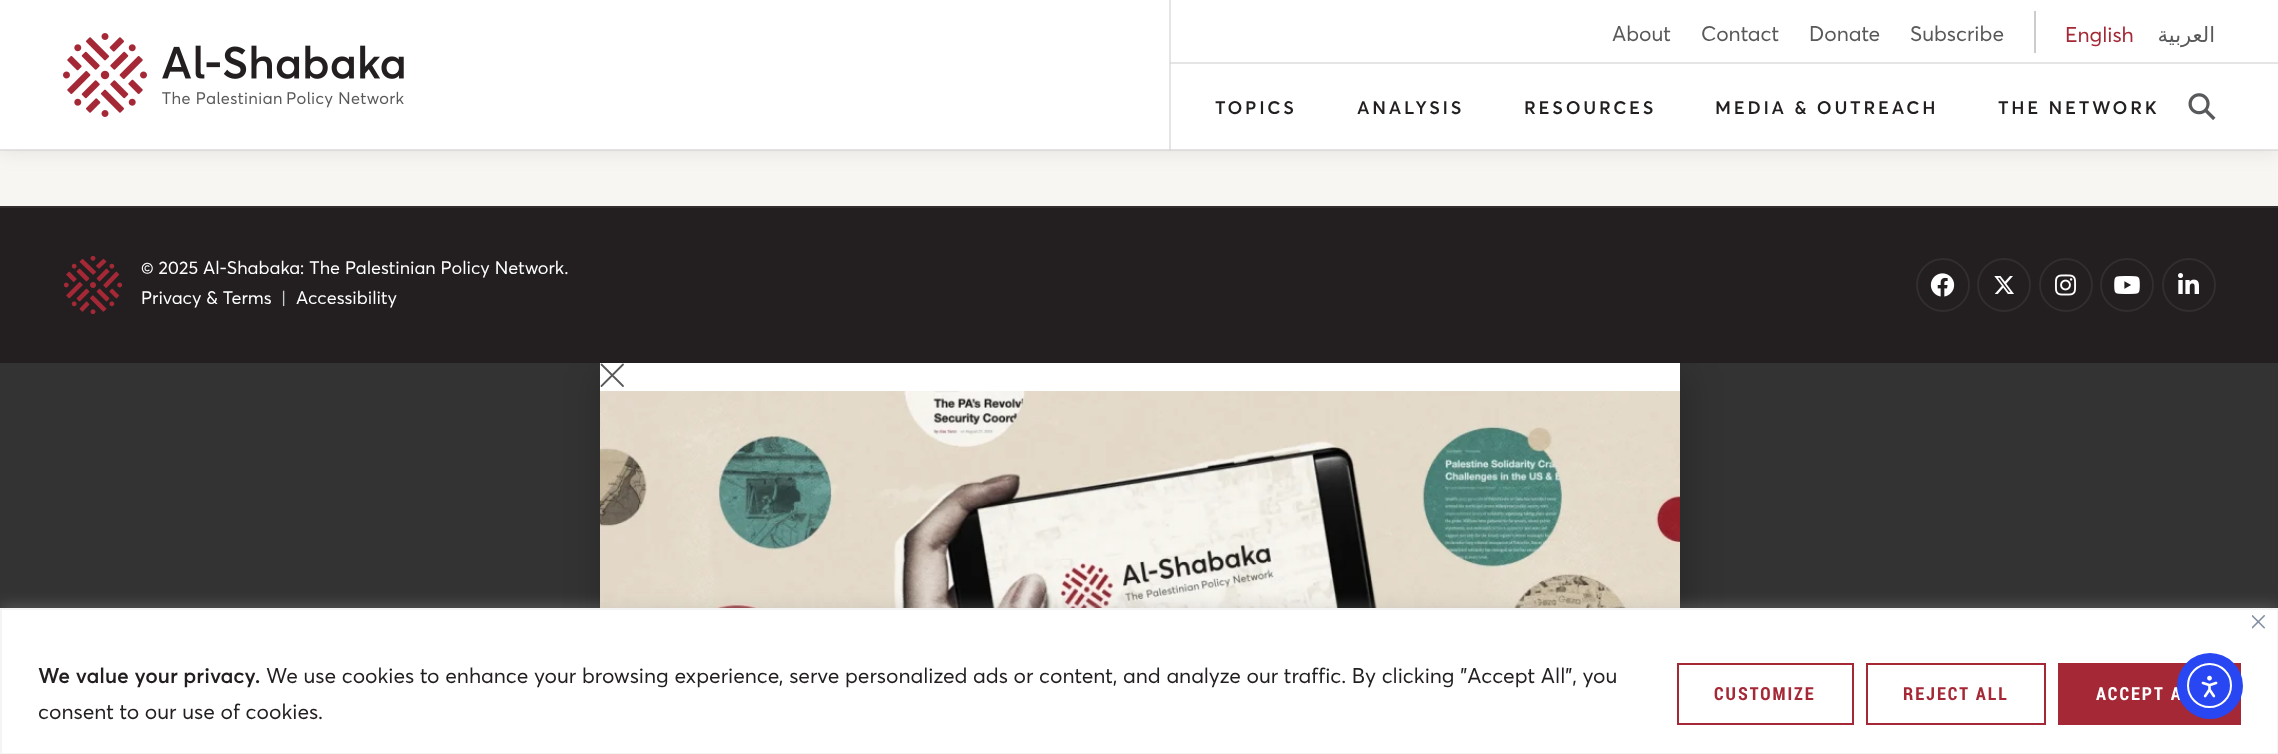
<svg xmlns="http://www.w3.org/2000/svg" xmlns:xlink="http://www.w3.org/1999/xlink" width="2278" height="754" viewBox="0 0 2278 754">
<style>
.cls-1{font:21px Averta;fill:#58595b}
.cls-2{font:21px Averta;fill:#a42835}
.cls-3{font:21px DejaVu Sans;direction:rtl;fill:#58595b}
.cls-4{font:600 18px Averta;letter-spacing:2.75px;fill:#231f20}
.cls-5{font:18px Averta;fill:#ffffff}
.cls-6{font:18px Averta;fill:#cccccc}
.cls-7{font:600 21px Averta;fill:#231f20}
.cls-8{font:21px Averta;fill:#231f20}
.cls-9{font:bold 18px Roboto Condensed;letter-spacing:2px;fill:#a42835}
.cls-10{font:bold 18px Roboto Condensed;letter-spacing:2px;fill:#ffffff}
</style>
<rect width="100%" height="100%" fill="#333333"/>
<rect fill="#f8f6f2" x="0" y="150" width="2278" height="56"/>
<rect fill="#888888" fill-opacity="0.15" filter="blur(9px)" x="0" y="3" width="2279" height="150"/>
<rect fill="#ffffff" x="0" y="0" width="2278" height="150"/>
<rect fill="#cccccc" fill-opacity="0.5" x="0" y="149" width="2278" height="2"/>
<rect fill="#cccccc" fill-opacity="0.5" x="1169" y="0" width="2" height="150"/>
<image xlink:href="image0.png" x="63" y="33" width="341" height="84"/>
<rect fill="#cccccc" x="2034" y="11" width="2" height="42"/>
<rect fill="#cccccc" fill-opacity="0.5" x="1170" y="62" width="1108" height="2"/>
<image xlink:href="image1.png" x="2188" y="93" width="28" height="27"/>
<rect fill="#000000" fill-opacity="0.2" filter="blur(17px)" x="599" y="371" width="1089" height="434"/>
<rect fill="#231f20" x="0" y="208" width="2278" height="155"/>
<rect fill="#322d2e" x="0" y="206" width="2278" height="2"/>
<image xlink:href="image2.png" x="63" y="255" width="60" height="60"/>
<circle fill="none" stroke="#322d2e" stroke-width="2" cx="1943" cy="285" r="26"/>
<image xlink:href="image3.png" x="1930" y="273" width="25" height="24"/>
<circle fill="none" stroke="#322d2e" stroke-width="2" cx="2004" cy="285" r="26"/>
<image xlink:href="image4.png" x="1994" y="276" width="20" height="18"/>
<circle fill="none" stroke="#322d2e" stroke-width="2" cx="2066" cy="285" r="26"/>
<image xlink:href="image5.png" x="2055" y="274" width="22" height="22"/>
<circle fill="none" stroke="#322d2e" stroke-width="2" cx="2127" cy="285" r="26"/>
<image xlink:href="image6.png" x="2114" y="276" width="26" height="18"/>
<circle fill="none" stroke="#322d2e" stroke-width="2" cx="2189" cy="285" r="26"/>
<image xlink:href="image7.png" x="2178" y="273" width="21" height="21"/>
<rect fill="#ffffff" x="600" y="363" width="1080" height="28"/>
<path fill="none" stroke="#58595b" stroke-width="1.8" stroke-linecap="round" d="M601.5 364.5L623 386M601.5 386L623 364.5"/>
<image xlink:href="image8.png" x="600" y="391" width="1080" height="217"/>
<rect fill="#acabab" fill-opacity="0.3" filter="blur(7.5px)" x="0" y="606" width="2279" height="147"/>
<rect fill="#ffffff" stroke="#f4f4f4" stroke-width="2" x="1" y="609" width="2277" height="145"/>
<image xlink:href="image10.png" x="2252" y="615" width="13" height="14"/>
<rect fill="none" stroke="#a42835" stroke-width="2" x="1678" y="664" width="175" height="60"/>
<rect fill="none" stroke="#a42835" stroke-width="2" x="1867" y="664" width="178" height="60"/>
<rect fill="#a42835" x="2058" y="663" width="183" height="62"/>
<text class="cls-1" x="1612" y="41">About</text>
<text class="cls-1" x="1701" y="41">Contact</text>
<text class="cls-1" x="1809" y="41">Donate</text>
<text class="cls-1" x="1910" y="41">Subscribe</text>
<text class="cls-2" x="2065" y="42">English</text>
<text class="cls-3" x="2215" y="42">العربية</text>
<text class="cls-4" x="1215" y="114">TOPICS</text>
<text class="cls-4" x="1357" y="114">ANALYSIS</text>
<text class="cls-4" x="1524" y="114">RESOURCES</text>
<text class="cls-4" x="1715" y="114">MEDIA &amp; OUTREACH</text>
<text class="cls-4" x="1998" y="114">THE NETWORK</text>
<text class="cls-5"><tspan x="141" y="274">© 2025 Al-Shabaka: The Palestinian Policy Network.</tspan><tspan x="141" y="304">Privacy &amp; Terms</tspan></text>
<text class="cls-6" x="281" y="304">|</text>
<text class="cls-5" x="296" y="304">Accessibility</text>
<text class="cls-7" x="38" y="683">We value your privacy.</text>
<text class="cls-8" x="266" y="683">We use cookies to enhance your browsing experience, serve personalized ads or content, and analyze our traffic. By clicking "Accept All", you</text>
<text class="cls-8" x="38" y="719">consent to our use of cookies.</text>
<text class="cls-9" x="1714" y="700">CUSTOMIZE</text>
<text class="cls-9" x="1903" y="700">REJECT ALL</text>
<text class="cls-10" x="2096" y="700">ACCEPT A</text>
<circle fill="#2847f3" cx="2210" cy="686" r="33"/>
<circle fill="none" stroke="#ffffff" stroke-width="2" cx="2209.5" cy="685.5" r="21.5"/>
<image xlink:href="image9.png" x="2201" y="675" width="17" height="23"/>
</svg>
